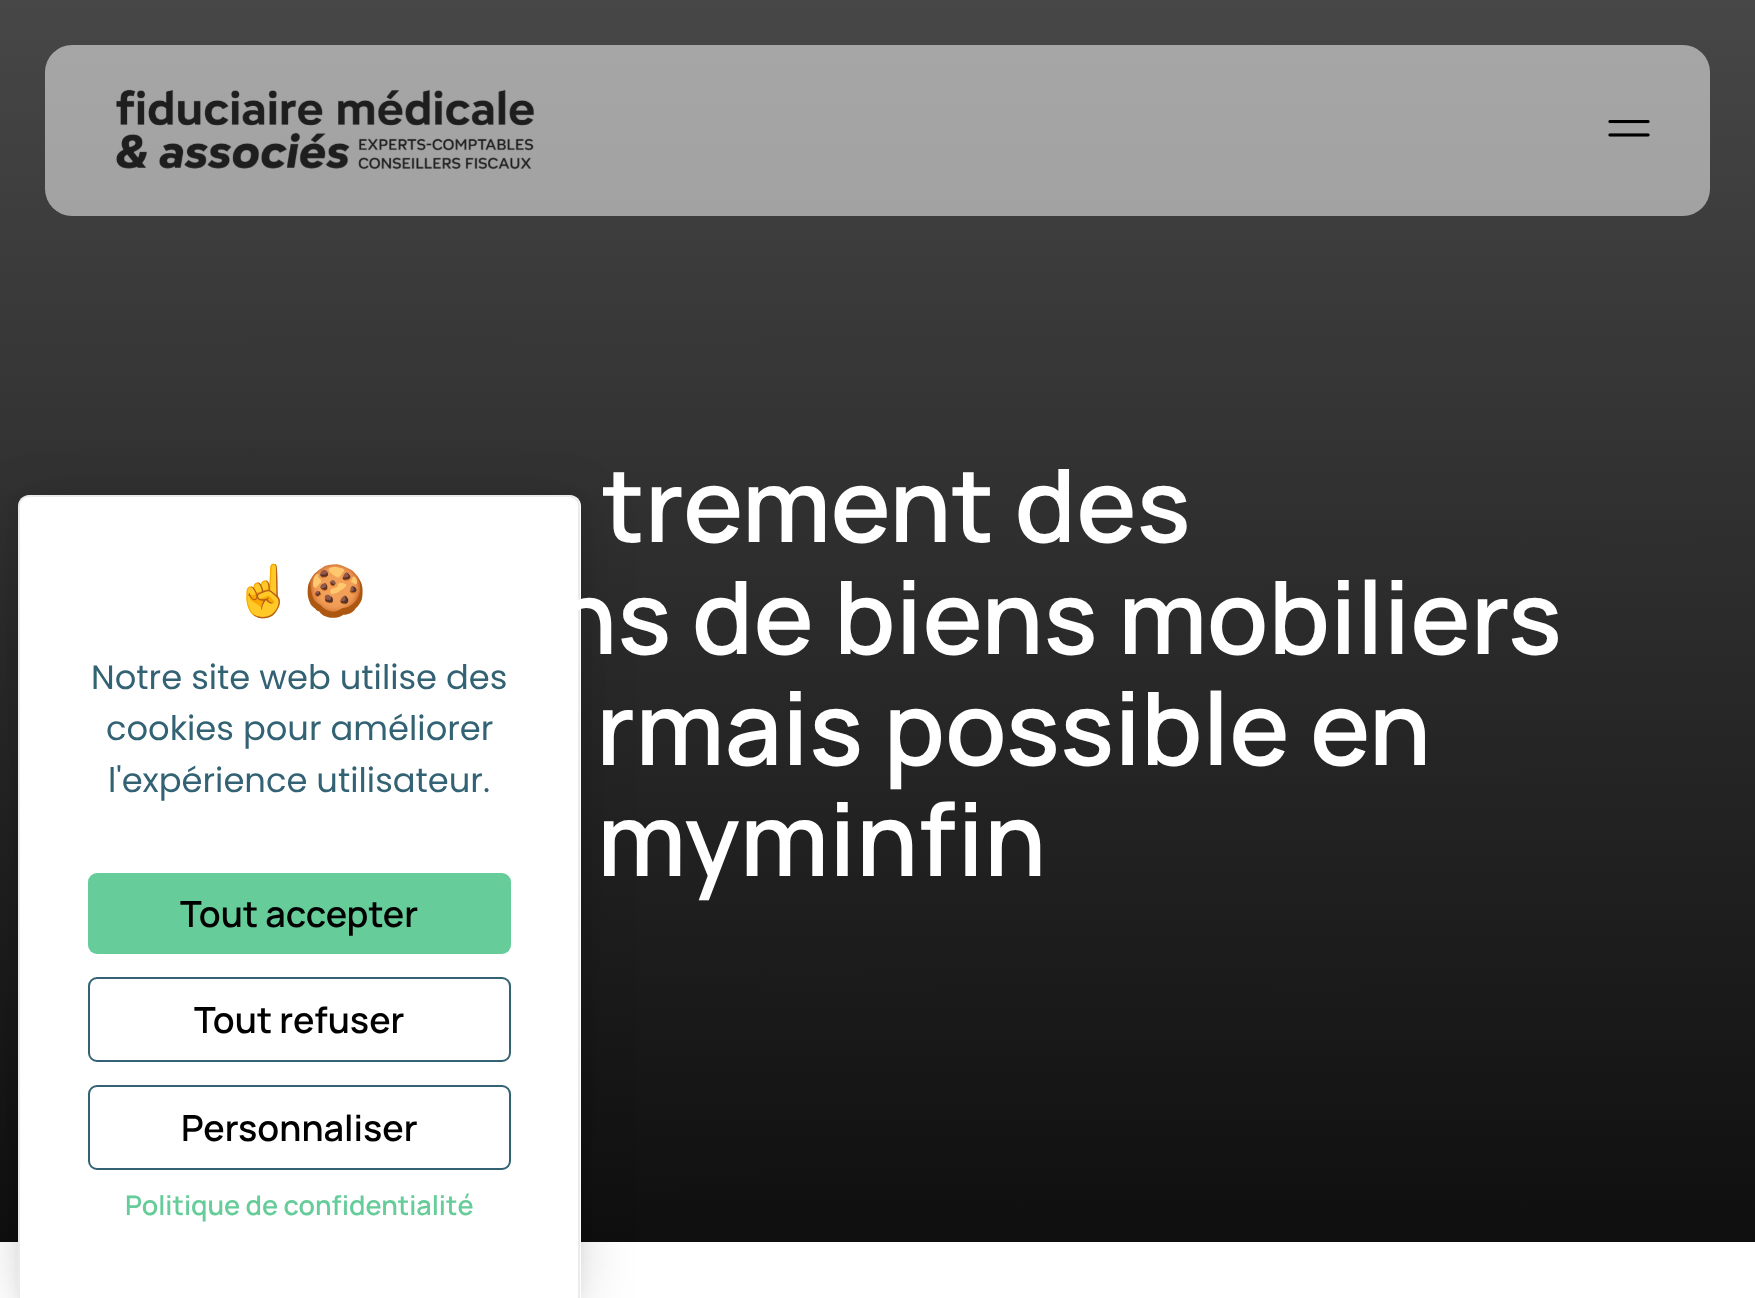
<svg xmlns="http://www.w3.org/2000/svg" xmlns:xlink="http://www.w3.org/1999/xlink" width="1755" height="1298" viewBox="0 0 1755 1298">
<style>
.cls-1{font:50px Noto Color Emoji;fill:#ea5b62}
.cls-2{font:33.75px Poppins;fill:#326273}
.cls-3{font:600 36px Manrope;fill:#000000}
.cls-4{font:600 27px Manrope;fill:#66cc99}
.cls-5{font:600 101.25px Manrope;fill:#ffffff}
</style>
<defs>
<linearGradient id="g1" gradientUnits="userSpaceOnUse" x1="877" y1="0" x2="878" y2="1242"><stop offset="0" stop-color="#474747"/><stop offset="1" stop-color="#0f0f0f"/></linearGradient>
</defs>
<rect width="100%" height="100%" fill="#ffffff"/>
<rect fill="url(#g1)" x="0" y="0" width="1755" height="1242"/>
<rect fill="#ffffff" fill-opacity="0.52" x="45" y="45" width="1665" height="171" rx="27"/>
<image xlink:href="image0.png" x="116" y="89" width="419" height="81"/>
<image xlink:href="image1.png" x="1608" y="120" width="42" height="17"/>
<rect fill="#000000" fill-opacity="0.05" filter="blur(7px)" x="18" y="500" width="563" height="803" rx="11"/>
<rect fill="#000000" fill-opacity="0.15" filter="blur(27px)" x="18" y="504" width="563" height="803" rx="11"/>
<path fill="#ffffff" d="M29 495H570C576 495 581 500 581 506V1298H18V506C18 500 23 495 29 495Z"/>
<path fill="#000000" fill-opacity="0.08" fill-rule="evenodd" d="M29 495H569C575 495 580 500 580 506V1298H18V506C18 500 23 495 29 495ZM29 497H569C574 497 578 501 578 506V1298H20V506C20 501 24 497 29 497Z"/>
<rect fill="#66cc99" x="88" y="873" width="423" height="81" rx="9"/>
<rect fill="none" stroke="#326273" stroke-width="2" x="89" y="978" width="421" height="83" rx="8"/>
<rect fill="none" stroke="#326273" stroke-width="2" x="89" y="1086" width="421" height="83" rx="8"/>
<text class="cls-1" x="233" y="608">☝️</text>
<text class="cls-1" x="304" y="608">🍪</text>
<text class="cls-2" x="91" y="689">Notre site web utilise des</text>
<text class="cls-2" x="106" y="740">cookies pour améliorer</text>
<text class="cls-2" x="108" y="792">l'expérience utilisateur.</text>
<text class="cls-3" x="180" y="927">Tout accepter</text>
<text class="cls-3" x="194" y="1033">Tout refuser</text>
<text class="cls-3" x="181" y="1141">Personnaliser</text>
<text class="cls-4" x="125" y="1215">Politique de confidentialité</text>
<text class="cls-5" x="602" y="542">trement des</text>
<text class="cls-5" x="555" y="654">ns de biens mobiliers</text>
<text class="cls-5" x="596" y="765">rmais possible en</text>
<text class="cls-5" x="597" y="876">myminfin</text>
</svg>
